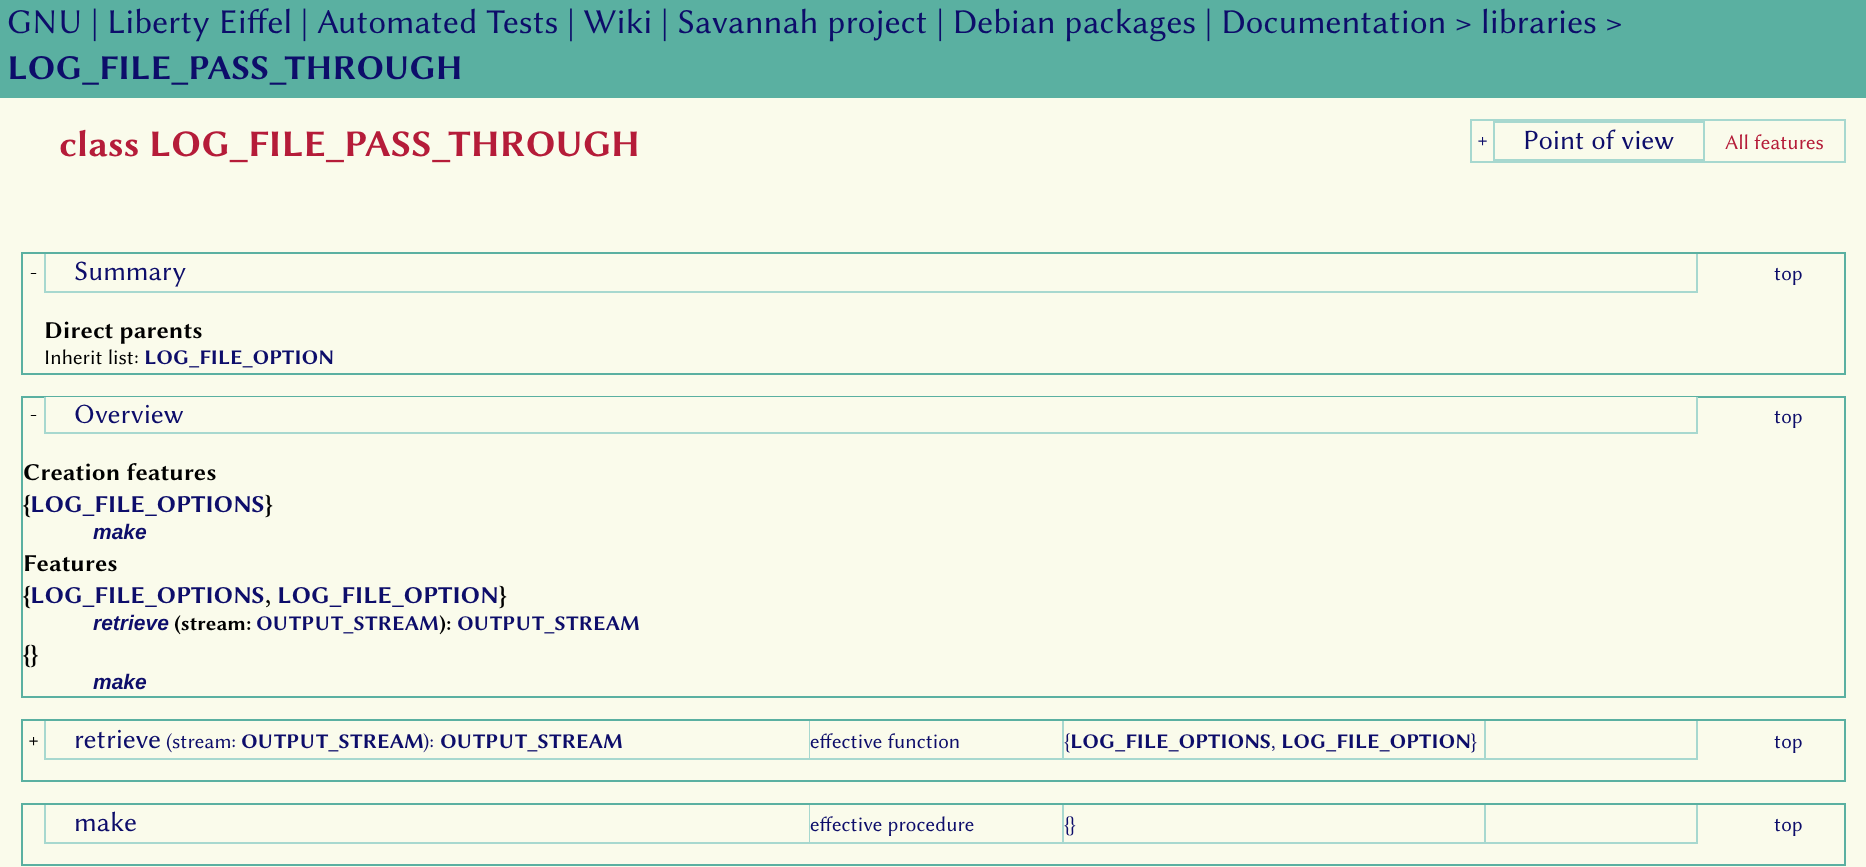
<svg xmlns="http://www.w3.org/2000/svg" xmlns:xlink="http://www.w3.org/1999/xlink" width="1866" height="867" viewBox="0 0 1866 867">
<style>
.cls-1{font:35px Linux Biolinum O;fill:#0d0d6a}
.cls-2{font:bold 35px Linux Biolinum O;fill:#0d0d6a}
.cls-3{font:bold 37.75px Linux Biolinum O;fill:#b51c39}
.cls-4{font:21px Linux Biolinum O;fill:#0d0d6a}
.cls-5{font:28px Linux Biolinum O;fill:#0d0d6a}
.cls-6{font:21px Linux Biolinum O;fill:#b51c39}
.cls-7{font:21px Linux Biolinum O;fill:#000000}
.cls-8{font:bold 24.5px Linux Biolinum O;fill:#000000}
.cls-9{font:bold 21px Linux Biolinum O;fill:#0d0d6a}
.cls-10{font:bold 24.5px Linux Biolinum O;fill:#0d0d6a}
.cls-11{font:italic bold 21px Liberation Sans;fill:#0d0d6a}
.cls-12{font:bold 21px Linux Biolinum O;fill:#000000}
</style>
<rect width="100%" height="100%" fill="#fafbeb"/>
<rect fill="#5ab0a1" x="0" y="0" width="1866" height="98"/>
<rect fill="none" stroke="#a7d8cf" stroke-width="2" x="1471" y="120" width="374" height="42"/>
<rect fill="none" stroke="#a7d8cf" stroke-width="2" x="1494" y="122" width="210" height="38"/>
<rect fill="none" stroke="#5ab0a1" stroke-width="2" x="22" y="253" width="1823" height="121"/>
<rect fill="#a7d8cf" x="1696" y="254" width="2" height="38"/>
<rect fill="#a7d8cf" x="44" y="291" width="1654" height="2"/>
<rect fill="#a7d8cf" x="44" y="254" width="2" height="38"/>
<rect fill="none" stroke="#5ab0a1" stroke-width="2" x="22" y="397" width="1823" height="300"/>
<rect fill="#fafbeb" x="46" y="397" width="1650" height="1"/>
<rect fill="#a7d8cf" x="1696" y="397" width="2" height="37"/>
<rect fill="#a7d8cf" x="44" y="432" width="1654" height="2"/>
<rect fill="#a7d8cf" x="44" y="397" width="2" height="37"/>
<rect fill="none" stroke="#5ab0a1" stroke-width="2" x="22" y="720" width="1823" height="61"/>
<rect fill="#a7d8cf" x="809" y="721" width="1" height="39"/>
<rect fill="#a7d8cf" x="44" y="758" width="766" height="2"/>
<rect fill="#a7d8cf" x="44" y="721" width="2" height="39"/>
<rect fill="#a7d8cf" x="1062" y="721" width="2" height="39"/>
<rect fill="#a7d8cf" x="810" y="758" width="254" height="2"/>
<rect fill="#a7d8cf" x="1484" y="721" width="2" height="39"/>
<rect fill="#a7d8cf" x="1064" y="758" width="422" height="2"/>
<rect fill="#a7d8cf" x="1696" y="721" width="2" height="39"/>
<rect fill="#a7d8cf" x="1486" y="758" width="212" height="2"/>
<rect fill="none" stroke="#5ab0a1" stroke-width="2" x="22" y="804" width="1823" height="61"/>
<rect fill="#a7d8cf" x="809" y="805" width="1" height="39"/>
<rect fill="#a7d8cf" x="44" y="842" width="766" height="2"/>
<rect fill="#a7d8cf" x="44" y="805" width="2" height="39"/>
<rect fill="#a7d8cf" x="1062" y="805" width="2" height="39"/>
<rect fill="#a7d8cf" x="810" y="842" width="254" height="2"/>
<rect fill="#a7d8cf" x="1484" y="805" width="2" height="39"/>
<rect fill="#a7d8cf" x="1064" y="842" width="422" height="2"/>
<rect fill="#a7d8cf" x="1696" y="805" width="2" height="39"/>
<rect fill="#a7d8cf" x="1486" y="842" width="212" height="2"/>
<text class="cls-1" x="7" y="33">GNU | Liberty Eiffel | Automated Tests | Wiki | Savannah project | Debian packages | Documentation &gt; libraries &gt;</text>
<text class="cls-2" x="7" y="79">LOG_FILE_PASS_THROUGH</text>
<text class="cls-3" x="59" y="156">class LOG_FILE_PASS_THROUGH</text>
<text class="cls-4" x="1477" y="146">+</text>
<text class="cls-5" x="1523" y="149">Point of view</text>
<text class="cls-6" x="1725" y="149">All features</text>
<text class="cls-7" x="30" y="279">-</text>
<text class="cls-5" x="74" y="280">Summary</text>
<text class="cls-4" x="1774" y="280">top</text>
<text class="cls-8" x="44" y="338">Direct parents</text>
<text class="cls-7" x="44" y="364">Inherit list:</text>
<text class="cls-9" x="144" y="364">LOG_FILE_OPTION</text>
<text class="cls-7" x="30" y="421">-</text>
<text class="cls-5" x="74" y="423">Overview</text>
<text class="cls-4" x="1774" y="423">top</text>
<text class="cls-8"><tspan x="23" y="480">Creation features</tspan><tspan x="23" y="512">{</tspan></text>
<text class="cls-10" x="30" y="512">LOG_FILE_OPTIONS</text>
<text class="cls-8" x="265" y="512">}</text>
<text class="cls-11" x="93" y="539">make</text>
<text class="cls-8"><tspan x="23" y="571">Features</tspan><tspan x="23" y="603">{</tspan></text>
<text class="cls-10" x="30" y="603">LOG_FILE_OPTIONS</text>
<text class="cls-8" x="265" y="603">,</text>
<text class="cls-10" x="277" y="603">LOG_FILE_OPTION</text>
<text class="cls-8" x="499" y="603">}</text>
<text class="cls-11" x="93" y="630">retrieve</text>
<text class="cls-12" x="174" y="630">(stream:</text>
<text class="cls-9" x="256" y="630">OUTPUT_STREAM</text>
<text class="cls-12" x="439" y="630">):</text>
<text class="cls-9" x="457" y="630">OUTPUT_STREAM</text>
<text class="cls-8" x="23" y="662">{}</text>
<text class="cls-11" x="93" y="689">make</text>
<text class="cls-7" x="28" y="746">+</text>
<text class="cls-5" x="74" y="748">retrieve</text>
<text class="cls-4" x="166" y="748">(stream:</text>
<text class="cls-9" x="241" y="748">OUTPUT_STREAM</text>
<text class="cls-4" x="423" y="748">):</text>
<text class="cls-9" x="440" y="748">OUTPUT_STREAM</text>
<text class="cls-4" x="810" y="748">effective function</text>
<text class="cls-4" x="1064" y="748">{</text>
<text class="cls-9" x="1070" y="748">LOG_FILE_OPTIONS</text>
<text class="cls-4" x="1271" y="748">,</text>
<text class="cls-9" x="1281" y="748">LOG_FILE_OPTION</text>
<text class="cls-4" x="1471" y="748">}</text>
<text class="cls-4" x="1774" y="748">top</text>
<text class="cls-5" x="74" y="831">make</text>
<text class="cls-4" x="810" y="831">effective procedure</text>
<text class="cls-4" x="1064" y="831">{}</text>
<text class="cls-4" x="1774" y="831">top</text>
</svg>
